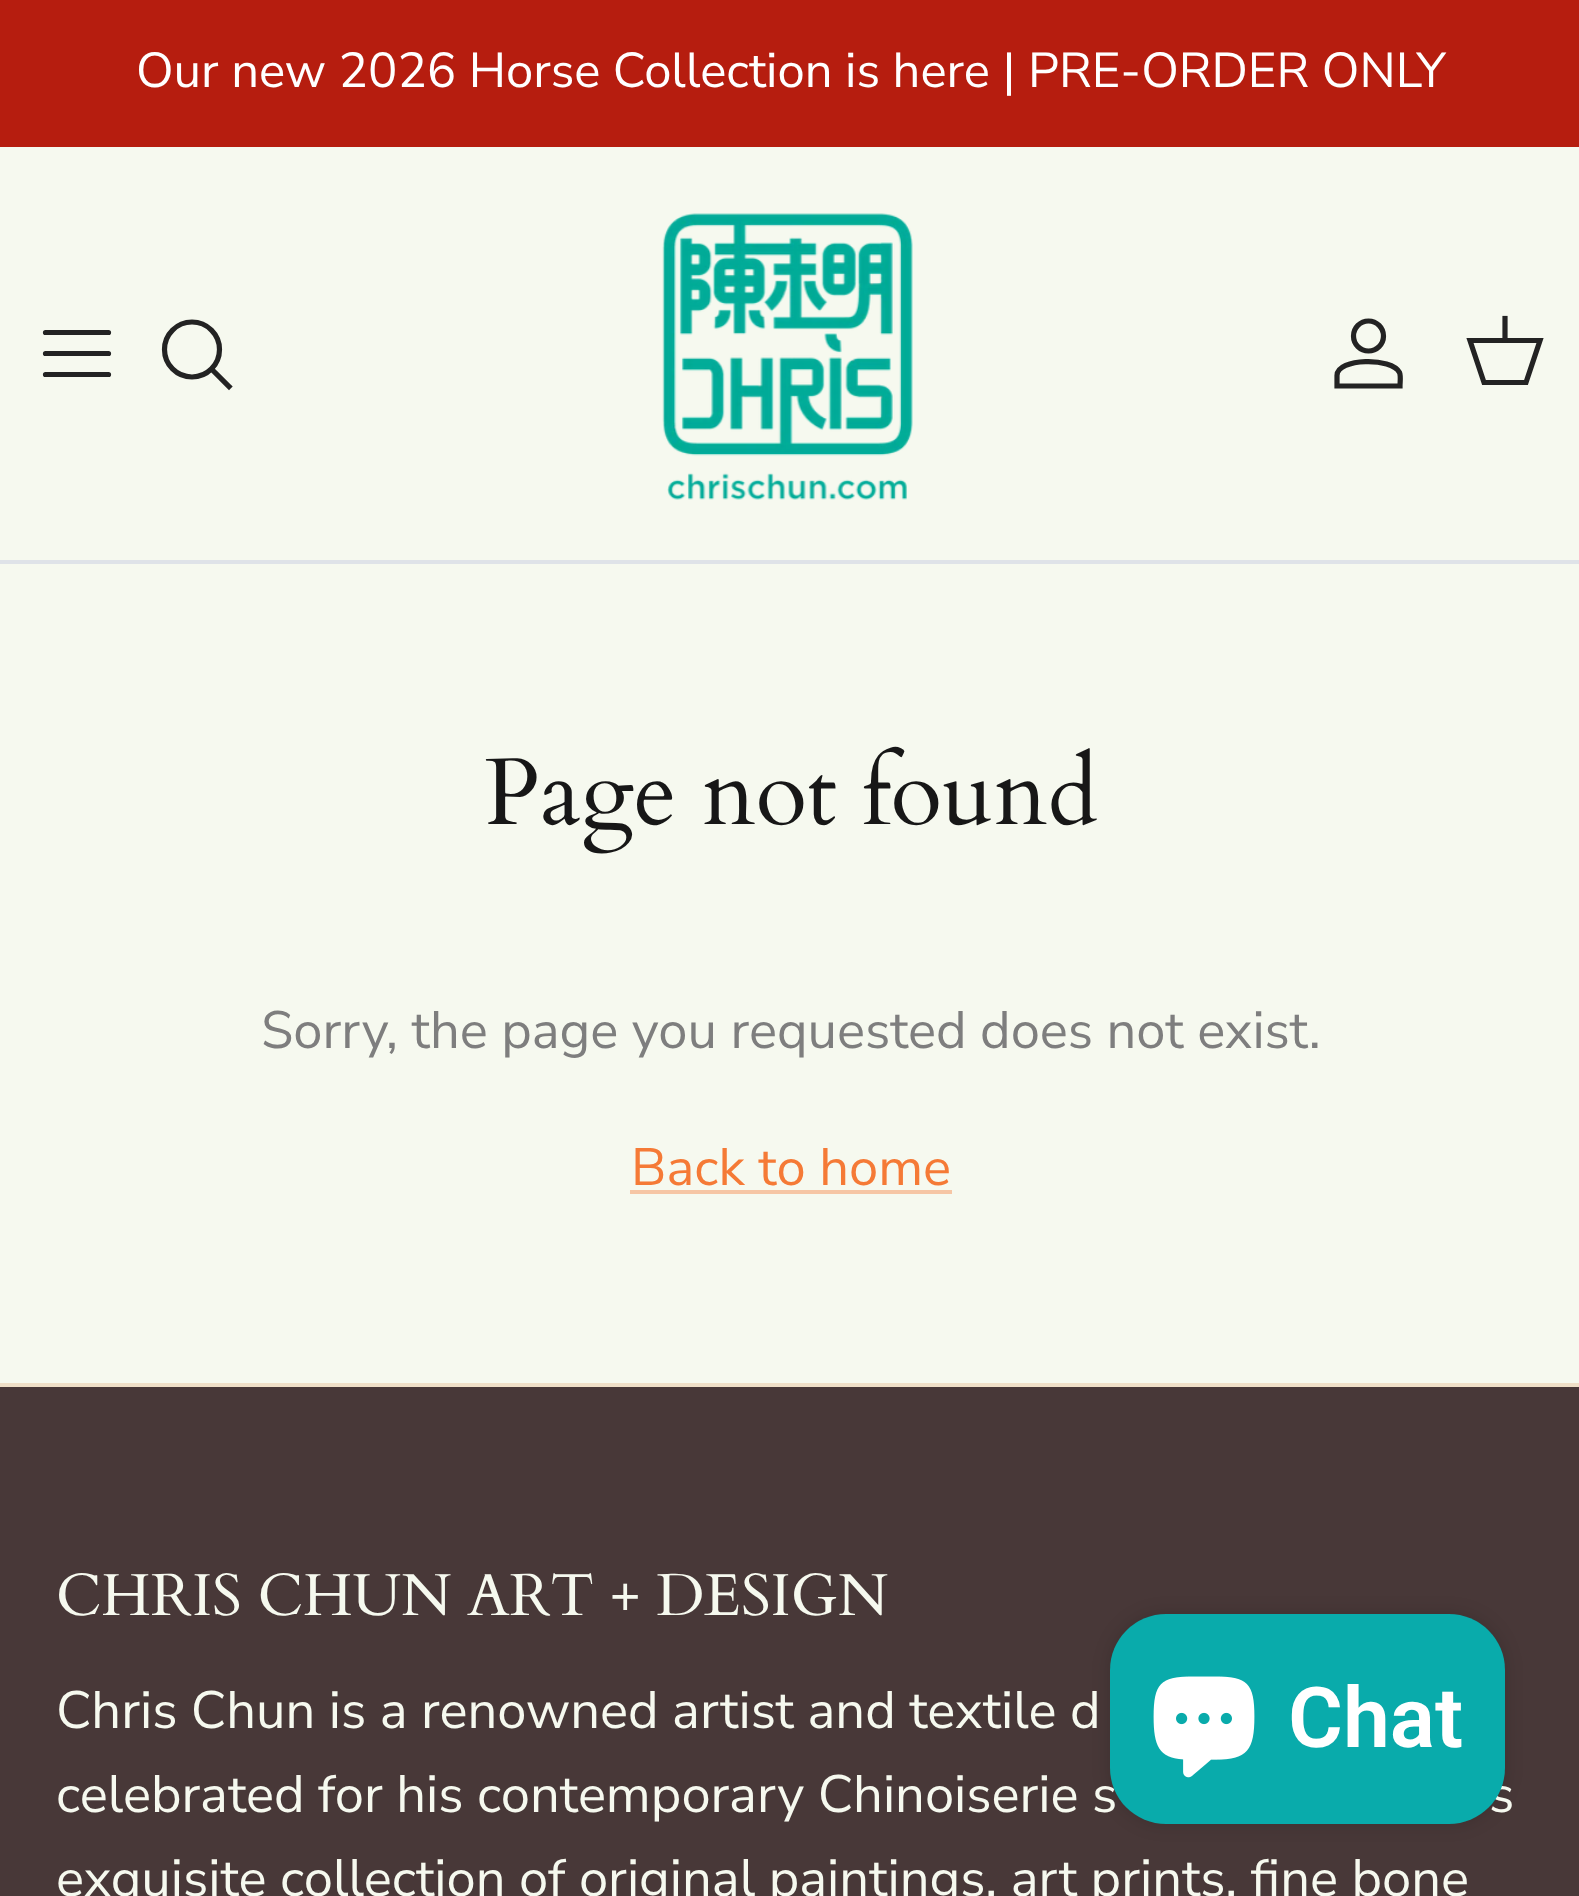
<svg xmlns="http://www.w3.org/2000/svg" xmlns:xlink="http://www.w3.org/1999/xlink" width="1579" height="1896" viewBox="0 0 1579 1896">
<style>
.cls-1{font:49px Nunito Sans;fill:#ffffff}
.cls-2{font:94.5px Cardo;fill:#171717}
.cls-3{font:52.5px Nunito Sans;fill:#7e7e7e}
.cls-4{font:52.5px Nunito Sans;fill:#f57a36}
.cls-5{font:59.25px Cardo;fill:#f6f9ef}
.cls-6{font:52.5px Nunito Sans;fill:#f6f9ef}
.cls-7{font:600 84px Roboto;fill:#ffffff}
</style>
<rect width="100%" height="100%" fill="#f6f9ef"/>
<rect fill="#b61d0f" x="0" y="0" width="1579" height="147"/>
<rect fill="#dfe3e8" x="0" y="560" width="1579" height="4"/>
<path fill="none" stroke="#232323" stroke-width="5.2" stroke-linecap="round" stroke-linejoin="round" d="M45.5 353.5H108.5M45.5 332.5H108.5M45.5 374.5H108.5"/>
<circle fill="none" stroke="#232323" stroke-width="5.2" cx="192" cy="349.5" r="27.5"/>
<path fill="none" stroke="#232323" stroke-width="5.2" stroke-linecap="square" d="M213.5 371L229 386.5"/>
<image xlink:href="image0.png" x="662" y="213" width="251" height="287"/>
<circle fill="none" stroke="#232323" stroke-width="5.2" cx="1368.5" cy="336" r="15"/>
<path fill="none" stroke="#232323" stroke-width="5.2" d="M1337 375.5C1337 358 1392 357 1399.5 372.5C1401 376 1400 382 1400 386H1337Z"/>
<path fill="none" stroke="#232323" stroke-width="5.2" d="M1470 340.5H1540L1526 382.5H1484Z"/>
<path fill="none" stroke="#232323" stroke-width="5.2" stroke-linecap="square" d="M1505 339.5V318.5"/>
<rect fill="#f6c6a5" x="630" y="1190" width="322" height="4"/>
<rect fill="#483838" x="0" y="1387" width="1579" height="509"/>
<rect fill="#efdfc7" x="0" y="1383" width="1579" height="4"/>
<rect fill="#000000" fill-opacity="0.15" filter="blur(9px)" x="1110" y="1614" width="395" height="210" rx="56"/>
<text class="cls-1" x="136" y="87">Our new 2026 Horse Collection is here | PRE-ORDER ONLY</text>
<text class="cls-2" x="484" y="824">Page not found</text>
<text class="cls-3" x="261" y="1048">Sorry, the page you requested does not exist.</text>
<text class="cls-4" x="631" y="1185">Back to home</text>
<text class="cls-5" x="56" y="1615">CHRIS CHUN ART + DESIGN</text>
<text class="cls-6"><tspan x="56" y="1728">Chris Chun is a renowned artist and textile d</tspan><tspan x="56" y="1812">celebrated for his contemporary Chinoiserie s</tspan></text>
<text class="cls-6" x="1489" y="1812">s</text>
<text class="cls-6" x="56" y="1896">exquisite collection of original paintings, art prints, fine bone</text>
<rect fill="#09abab" x="1110" y="1614" width="395" height="210" rx="56"/>
<image xlink:href="image1.png" x="1153" y="1676" width="102" height="102"/>
<text class="cls-7" x="1288" y="1747">Chat</text>
</svg>
